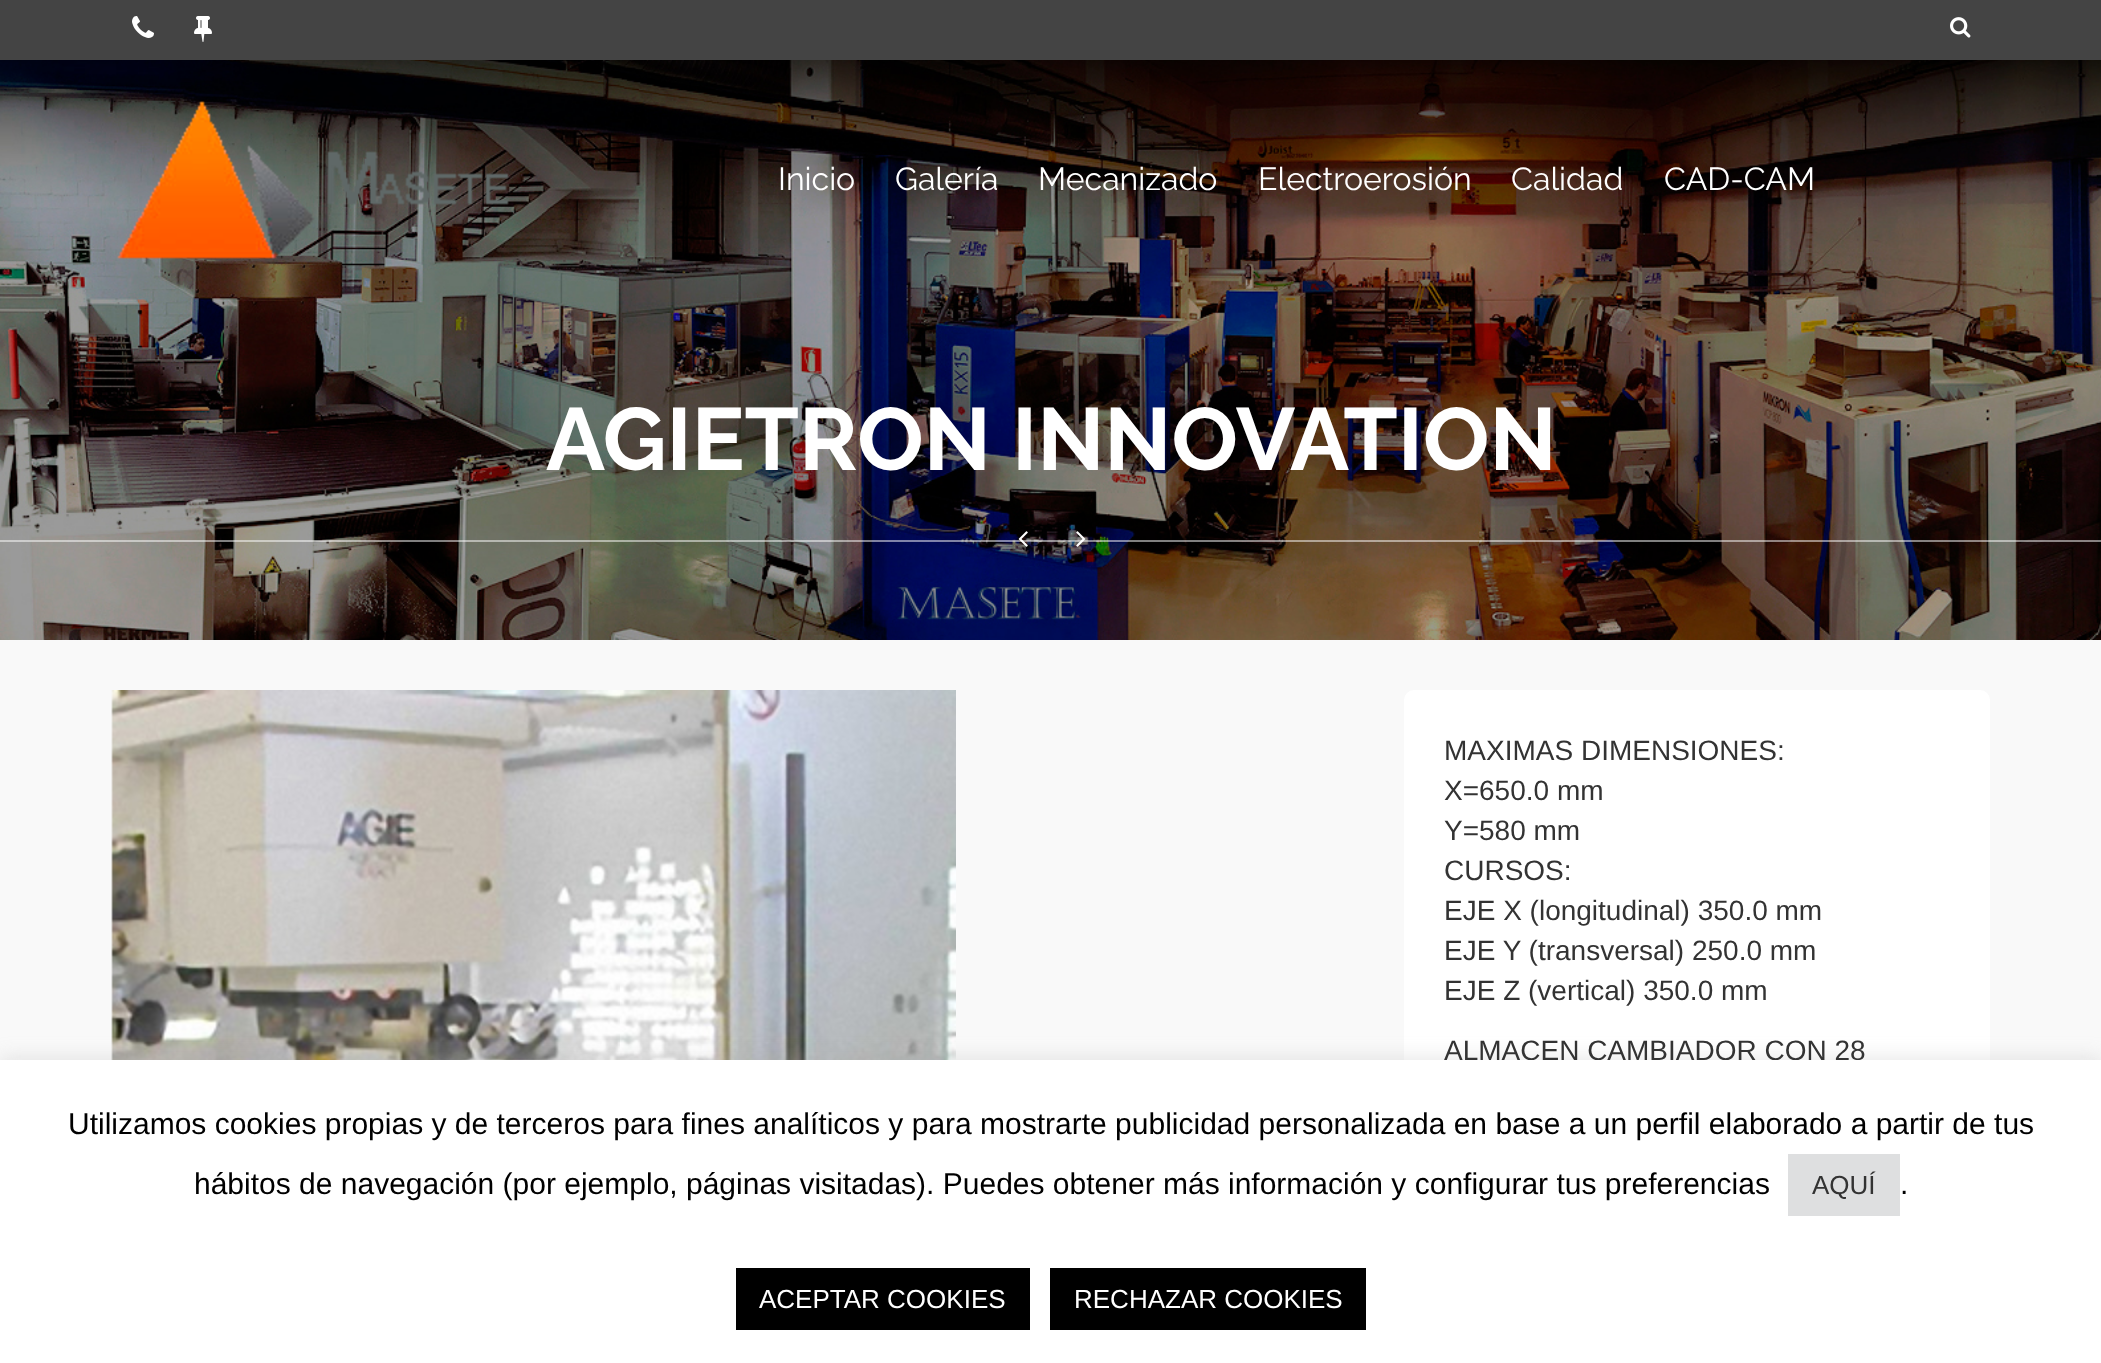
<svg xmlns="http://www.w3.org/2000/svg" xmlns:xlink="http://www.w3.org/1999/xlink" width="2101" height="1363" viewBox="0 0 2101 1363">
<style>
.cls-1{font:32px Raleway;fill:#ffffff}
.cls-2{font:bold 88px Raleway;fill:#ffffff}
.cls-3{font:28px Liberation Sans;fill:#333333}
.cls-4{font:30px Liberation Sans;fill:#000000}
.cls-5{font:26px Liberation Sans;fill:#333333}
.cls-6{font:26px Liberation Sans;fill:#ffffff}
</style>
<rect width="100%" height="100%" fill="#f9f9f9"/>
<image xlink:href="image4.png" x="0" y="60" width="2101" height="580"/>
<image xlink:href="image5.png" x="1018" y="531" width="10" height="16"/>
<image xlink:href="image6.png" x="1076" y="531" width="10" height="16"/>
<rect fill="#ffffff" fill-opacity="0.5" x="0" y="540" width="2101" height="2"/>
<rect fill="#444444" x="0" y="0" width="2101" height="60"/>
<image xlink:href="image0.png" x="132" y="16" width="22" height="22"/>
<image xlink:href="image1.png" x="194" y="16" width="18" height="26"/>
<image xlink:href="image2.png" x="1950" y="17" width="21" height="21"/>
<image xlink:href="image3.png" x="117" y="101" width="392" height="158"/>
<image xlink:href="image7.png" x="111" y="690" width="845" height="370"/>
<rect fill="#ffffff" x="1404" y="690" width="586" height="480" rx="10"/>
<rect fill="#acabab" fill-opacity="0.3" filter="blur(10px)" x="0" y="1058" width="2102" height="304"/>
<text class="cls-1" x="778" y="190">Inicio</text>
<text class="cls-1" x="895" y="190">Galería</text>
<text class="cls-1" x="1038" y="190">Mecanizado</text>
<text class="cls-1" x="1258" y="190">Electroerosión</text>
<text class="cls-1" x="1511" y="190">Calidad</text>
<text class="cls-1" x="1664" y="190">CAD-CAM</text>
<text class="cls-2" x="546" y="470">AGIETRON INNOVATION</text>
<text class="cls-3"><tspan x="1444" y="760">MAXIMAS DIMENSIONES:</tspan><tspan x="1444" y="800">X=650.0 mm</tspan><tspan x="1444" y="840">Y=580 mm</tspan><tspan x="1444" y="880">CURSOS:</tspan><tspan x="1444" y="920">EJE X (longitudinal) 350.0 mm</tspan><tspan x="1444" y="960">EJE Y (transversal) 250.0 mm</tspan><tspan x="1444" y="1000">EJE Z (vertical) 350.0 mm</tspan></text>
<text class="cls-3" x="1444" y="1060">ALMACEN CAMBIADOR CON 28</text>
<rect fill="#ffffff" x="0" y="1060" width="2101" height="303"/>
<text class="cls-4" x="68" y="1134">Utilizamos cookies propias y de terceros para fines analíticos y para mostrarte publicidad personalizada en base a un perfil elaborado a partir de tus</text>
<text class="cls-4" x="194" y="1194">hábitos de navegación (por ejemplo, páginas visitadas). Puedes obtener más información y configurar tus preferencias</text>
<rect fill="#dedfe0" x="1788" y="1154" width="112" height="62"/>
<text class="cls-5" x="1812" y="1194">AQUÍ</text>
<text class="cls-4" x="1900" y="1194">.</text>
<rect fill="#000000" x="736" y="1268" width="294" height="62"/>
<text class="cls-6" x="759" y="1308">ACEPTAR COOKIES</text>
<rect fill="#000000" x="1050" y="1268" width="316" height="62"/>
<text class="cls-6" x="1074" y="1308">RECHAZAR COOKIES</text>
</svg>
